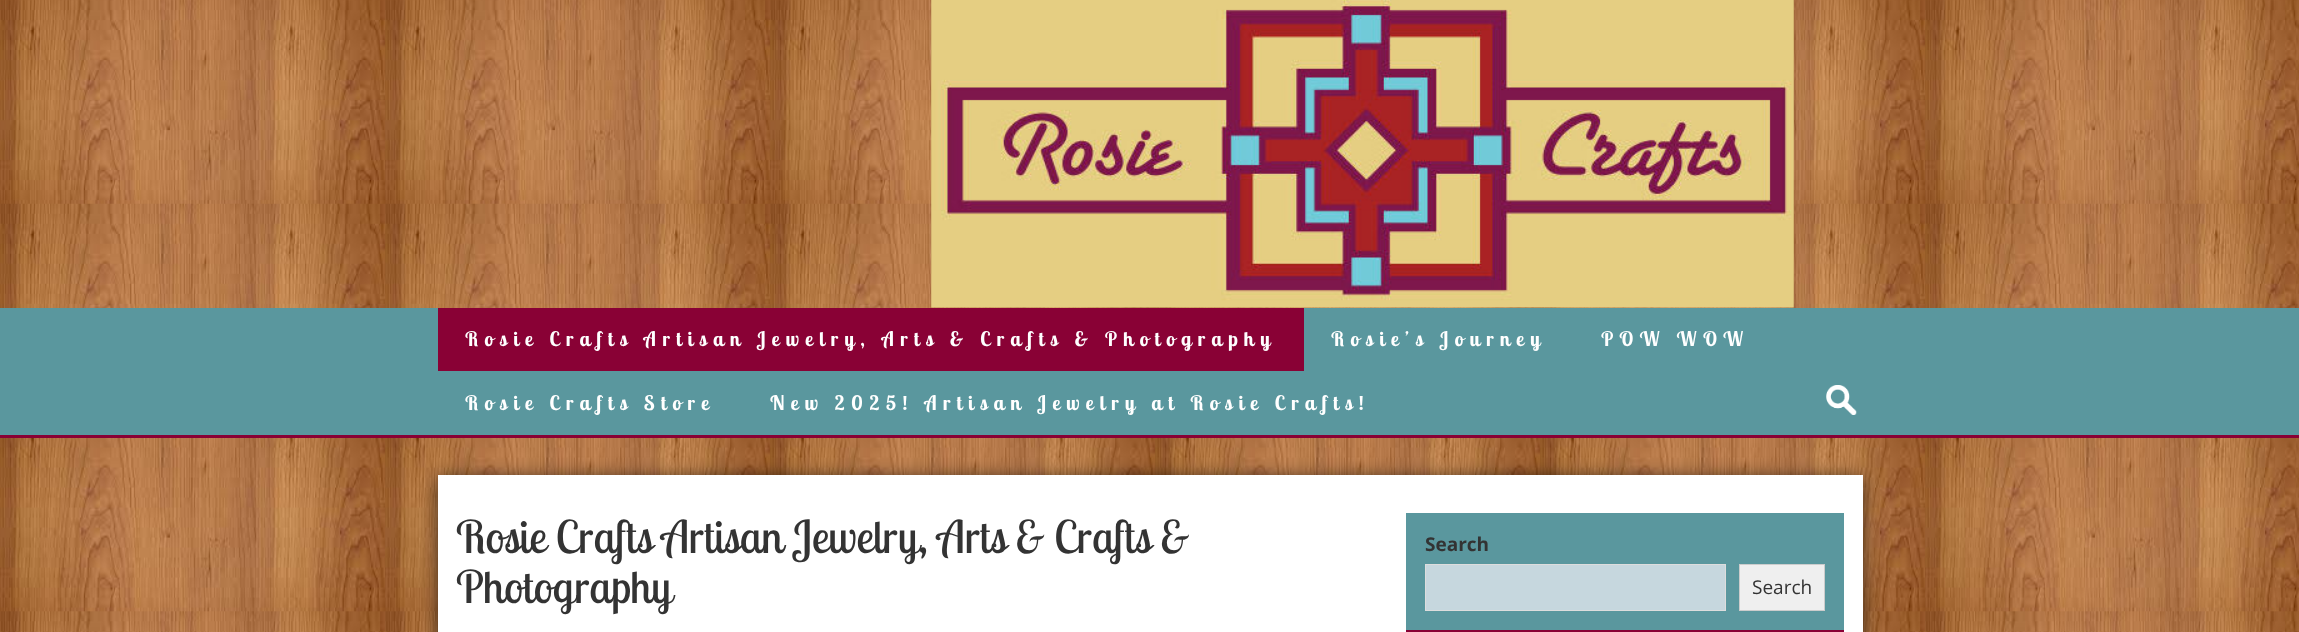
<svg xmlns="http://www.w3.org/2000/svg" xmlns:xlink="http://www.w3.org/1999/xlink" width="2299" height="632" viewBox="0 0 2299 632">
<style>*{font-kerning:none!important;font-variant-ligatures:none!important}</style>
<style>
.cls-1{font:bold 20px Lobster Two;letter-spacing:6.25px;fill:#ffffff}
.cls-2{font:45px Lobster Two;fill:#333333}
.cls-3{font:bold 19px Open Sans;fill:#333333}
.cls-4{font:19px Open Sans;fill:#333333}
</style>
<rect width="100%" height="100%" fill="#ffffff"/>
<image xlink:href="image0.png" x="0" y="0" width="2299" height="632"/>
<image xlink:href="image1.png" x="931" y="0" width="863" height="308"/>
<rect fill="#5a979e" x="0" y="308" width="2299" height="127"/>
<rect fill="#890135" x="0" y="435" width="2299" height="3"/>
<rect fill="#890135" x="438" y="308" width="866" height="63"/>
<image xlink:href="image2.png" x="1826" y="385" width="31" height="30"/>
<rect fill="#000000" fill-opacity="0.75" filter="blur(9.5px)" x="439" y="479" width="1422" height="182"/>
<rect fill="#ffffff" x="438" y="475" width="1425" height="157"/>
<rect fill="#5a979e" x="1406" y="513" width="438" height="117"/>
<rect fill="#890135" x="1406" y="630" width="438" height="2"/>
<rect fill="#c6d7de" stroke="#dddddd" x="1425.5" y="564.5" width="300" height="46"/>
<rect fill="#efefef" stroke="#cccccc" x="1739.5" y="564.5" width="85" height="46"/>
<text class="cls-1" x="465" y="346">Rosie Crafts Artisan Jewelry, Arts &amp; Crafts &amp; Photography</text>
<text class="cls-1" x="1331" y="346">Rosie’s Journey</text>
<text class="cls-1" x="1601" y="346">POW WOW</text>
<text class="cls-1" x="465" y="410">Rosie Crafts Store</text>
<text class="cls-1" x="770" y="410">New 2025! Artisan Jewelry at Rosie Crafts!</text>
<text class="cls-2"><tspan x="456" y="553">Rosie Crafts Artisan Jewelry, Arts &amp; Crafts &amp;</tspan><tspan x="456" y="603">Photography</tspan></text>
<text class="cls-3" x="1425" y="551">Search</text>
<text class="cls-4" x="1752" y="594">Search</text>
</svg>
